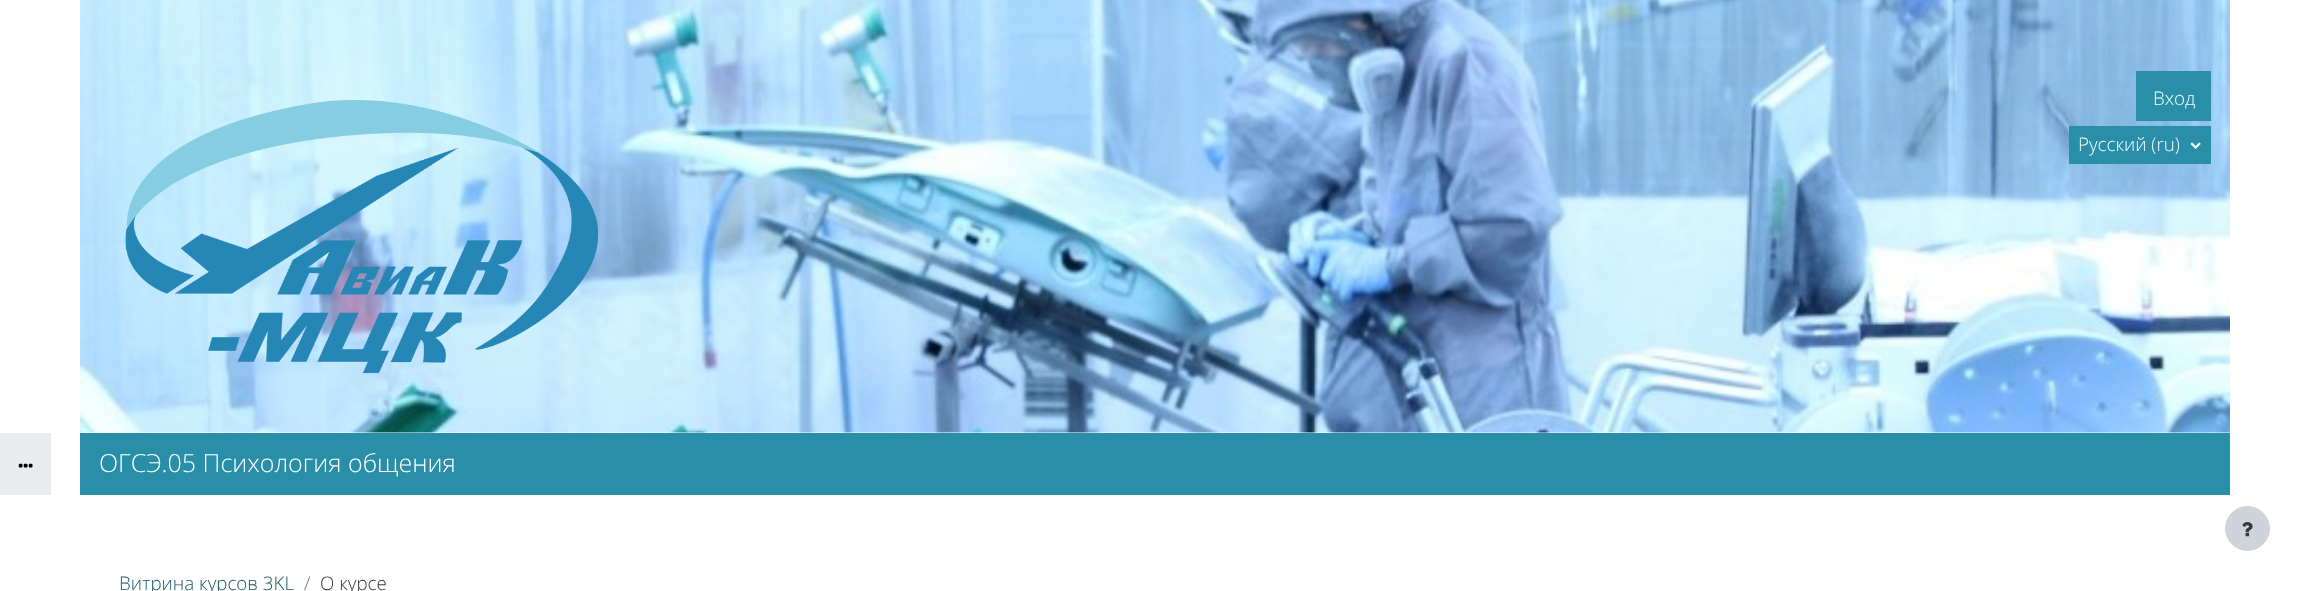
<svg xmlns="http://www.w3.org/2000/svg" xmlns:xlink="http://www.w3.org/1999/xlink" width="2309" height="591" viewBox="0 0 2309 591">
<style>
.cls-1{font:300 18.75px Open Sans;fill:#f0fefd}
.cls-2{font:300 25px Open Sans;fill:#ffffff}
.cls-3{font:300 18.75px Open Sans;fill:#195766}
.cls-4{font:300 18.75px Open Sans;fill:#6c757d}
.cls-5{font:300 18.75px Open Sans;fill:#343a40}
</style>
<rect width="100%" height="100%" fill="#ffffff"/>
<rect fill="#e9ecef" x="0" y="433" width="51" height="62"/>
<image xlink:href="image0.png" x="18" y="463" width="15" height="5"/>
<image xlink:href="image1.png" x="80" y="0" width="2150" height="433"/>
<image xlink:href="image2.png" x="125" y="100" width="473" height="274"/>
<rect fill="#298ea7" x="2136" y="71" width="75" height="50"/>
<rect fill="#298ea7" x="2069" y="126" width="142" height="38"/>
<image xlink:href="image3.png" x="2190" y="142" width="11" height="7"/>
<rect fill="#298ea7" x="80" y="433" width="2150" height="62"/>
<circle fill="#ced4da" stroke="#ced4da" cx="2247.5" cy="528.5" r="22"/>
<image xlink:href="image4.png" x="2242" y="522" width="11" height="15"/>
<text class="cls-1" x="2153" y="105">Вход</text>
<text class="cls-1" x="2078" y="151">Русский (ru)</text>
<text class="cls-2" x="99" y="472">ОГСЭ.05 Психология общения</text>
<text class="cls-3" x="119" y="590">Витрина курсов 3KL</text>
<text class="cls-4" x="304" y="590">/</text>
<text class="cls-5" x="320" y="590">О курсе</text>
</svg>
